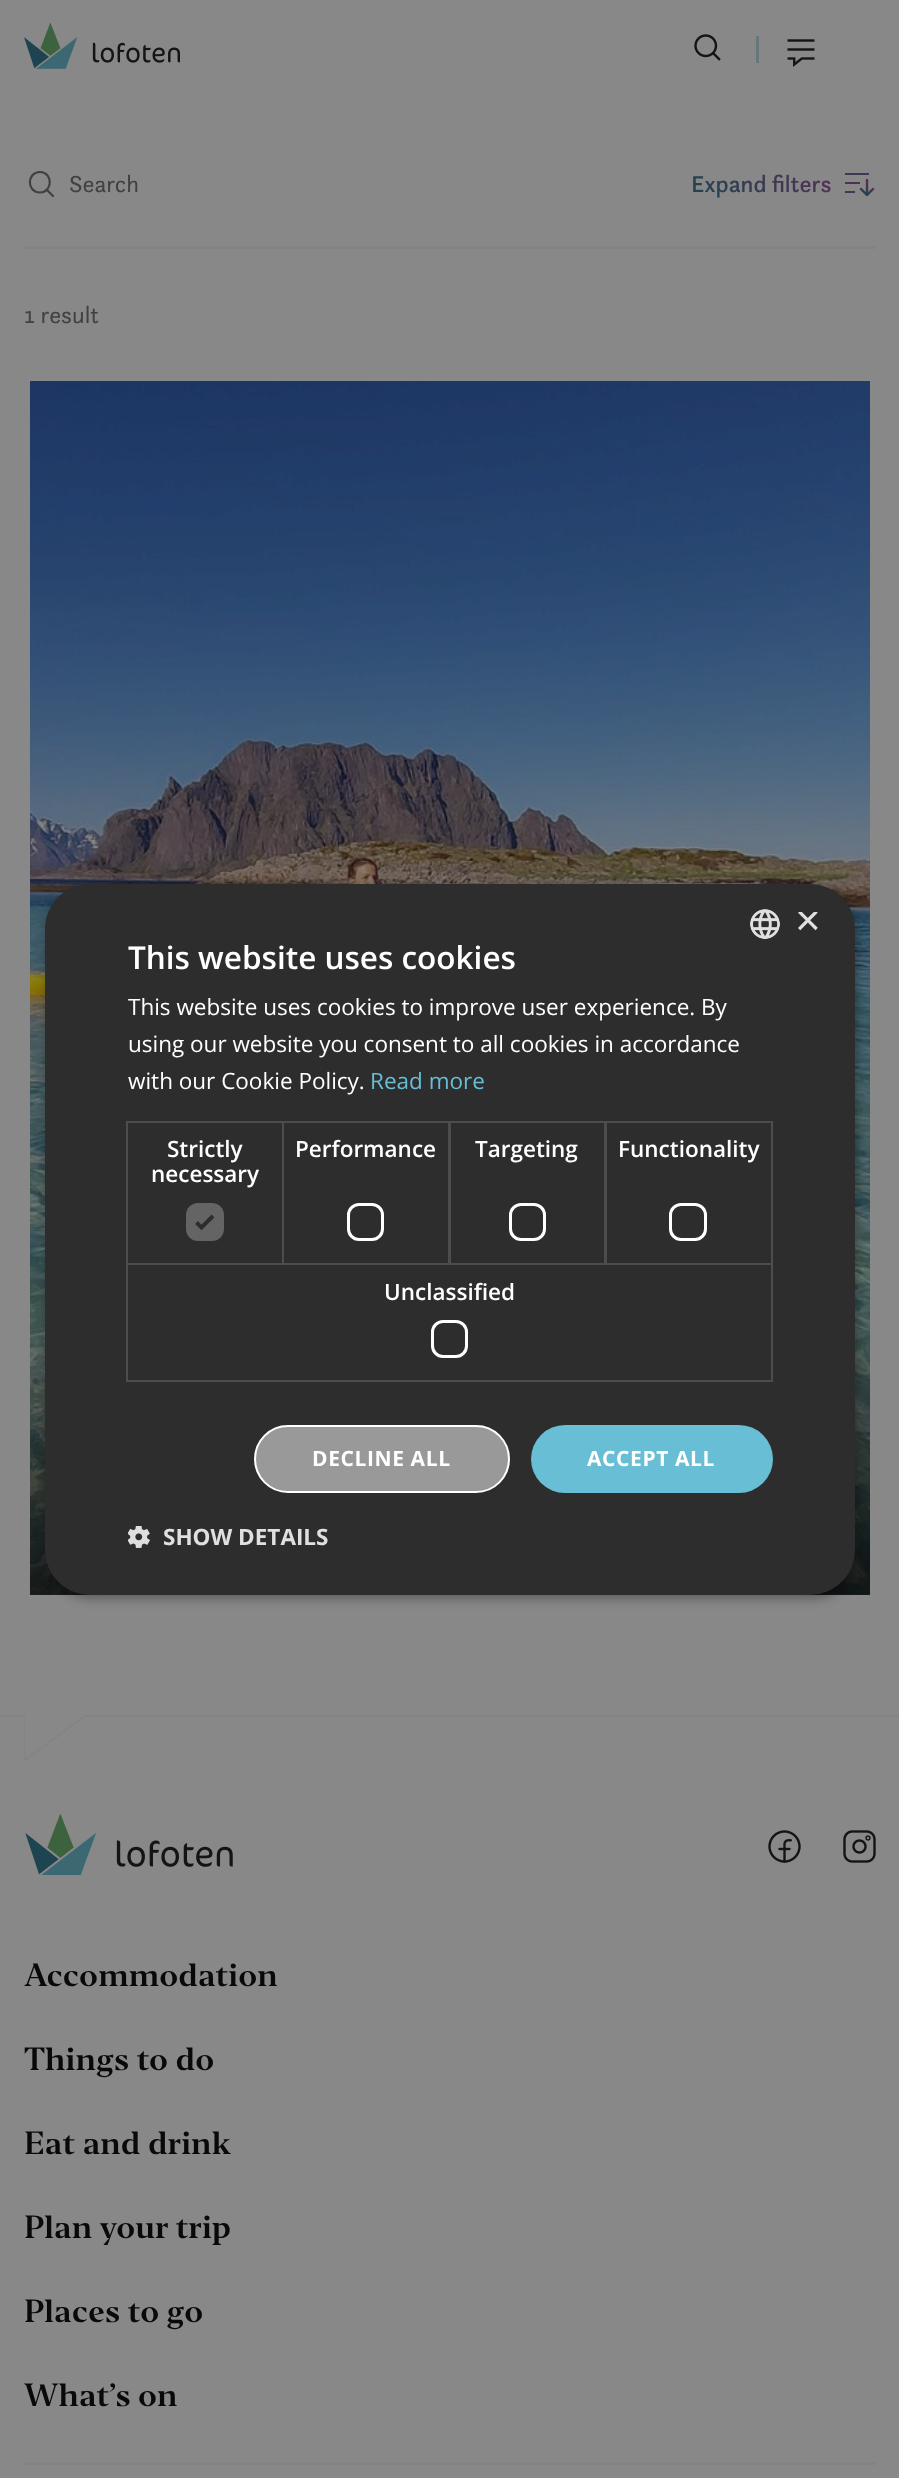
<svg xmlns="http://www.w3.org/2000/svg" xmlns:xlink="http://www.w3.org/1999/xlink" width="899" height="2478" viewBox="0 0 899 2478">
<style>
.cls-1{font:24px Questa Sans;fill:#414141}
.cls-2{font:500 24px Questa Sans;fill:url(#g2)}
.cls-3{font:bold 30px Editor;fill:#090909}
.cls-4{font:44px Liberation Sans;fill:#e0e0e0}
.cls-5{font:600 31.5px Open Sans;fill:#ffffff}
.cls-6{font:22.5px Open Sans;fill:#ffffff}
.cls-7{font:22.5px Open Sans;fill:#68bed5}
.cls-8{font:600 22.5px Open Sans;fill:#ffffff}
.cls-9{font:bold 21px Open Sans;letter-spacing:0.6px;fill:#ffffff}
.cls-10{font:bold 22.5px Open Sans;fill:#e0e0e0}
</style>
<defs>
<linearGradient id="g1" gradientUnits="userSpaceOnUse" x1="450" y1="1595" x2="450" y2="1335"><stop offset="0" stop-color="#090909" stop-opacity="0.8"/><stop offset="1" stop-color="#090909" stop-opacity="0"/></linearGradient>
<clipPath id="clip1"><rect x="24" y="1715" width="65" height="46"/></clipPath>
<linearGradient id="g2" gradientUnits="userSpaceOnUse" x1="803" y1="140" x2="718" y2="226"><stop offset="0" stop-color="#572f54"/><stop offset="1" stop-color="#1d4550"/></linearGradient>
<clipPath id="clip2"><rect x="795" y="912" width="23" height="23"/></clipPath>
</defs>
<rect width="100%" height="100%" fill="#888888"/>
<image xlink:href="image0.png" x="24" y="23" width="156" height="46"/>
<image xlink:href="image1.png" x="694" y="34" width="27" height="27"/>
<rect fill="#68777c" x="756" y="36" width="3" height="27"/>
<image xlink:href="image2.png" x="787" y="39" width="28" height="28"/>
<rect fill="#808486" x="24" y="246" width="852" height="3"/>
<path fill="none" stroke="#414141" stroke-width="2.2" d="M40 192.5C53 192.5 53 172 40 172C26.5 172 26.5 192.5 40 192.5Z"/>
<path fill="none" stroke="#414141" stroke-width="2.2" stroke-linecap="round" d="M53 196L47 190"/>
<image xlink:href="image3.png" x="845" y="173" width="30" height="24"/>
<rect fill="#68777c" x="30" y="1594" width="840" height="1"/>
<image xlink:href="image4.png" x="30" y="381" width="840" height="1214"/>
<rect fill="url(#g1)" x="30" y="1342" width="840" height="253"/>
<rect fill="#808486" x="0" y="1715" width="899" height="2"/>
<g clip-path="url(#clip1)">
<path fill="#888888" d="M24 1713H88L24 1761Z"/>
<path fill="none" stroke="#808486" stroke-width="1.5" d="M24 1713H88.5L24 1761Z"/>
</g>
<image xlink:href="image5.png" x="25" y="1814" width="208" height="61"/>
<image xlink:href="image6.png" x="768" y="1830" width="33" height="33"/>
<image xlink:href="image7.png" x="843" y="1830" width="33" height="33"/>
<rect fill="#808486" x="24" y="2462" width="852" height="3"/>
<rect fill="#000000" fill-opacity="0.35" filter="blur(6px)" x="47" y="887" width="810" height="711" rx="45"/>
<rect fill="#2d2d2d" x="45" y="884" width="810" height="711" rx="45"/>
<image xlink:href="image8.png" x="750" y="909" width="30" height="30"/>
<rect fill="none" stroke="#4d4d4d" stroke-width="2" x="127" y="1122" width="156" height="142"/>
<rect fill="#646464" x="186" y="1203" width="38" height="38" rx="12"/>
<path fill="none" stroke="#2d2d2d" stroke-width="3.9" d="M196.5 1222.5L201.5 1227.5L213 1216"/>
<rect fill="none" stroke="#4d4d4d" stroke-width="2" x="283" y="1122" width="166" height="142"/>
<rect fill="none" stroke="#ffffff" stroke-width="3" x="348.5" y="1204.5" width="34" height="35" rx="10.5"/>
<rect fill="none" stroke="#4d4d4d" stroke-width="2" x="450" y="1122" width="155" height="142"/>
<rect fill="none" stroke="#ffffff" stroke-width="3" x="510.5" y="1204.5" width="34" height="35" rx="10.5"/>
<rect fill="none" stroke="#4d4d4d" stroke-width="2" x="606" y="1122" width="166" height="142"/>
<rect fill="none" stroke="#ffffff" stroke-width="3" x="670.5" y="1204.5" width="35" height="35" rx="10.5"/>
<rect fill="none" stroke="#4d4d4d" stroke-width="2" x="127" y="1264" width="645" height="117"/>
<rect fill="none" stroke="#ffffff" stroke-width="3" x="432.5" y="1321.5" width="34" height="35" rx="10.5"/>
<rect fill="#999999" stroke="#ffffff" stroke-width="2" x="255" y="1426" width="254" height="66" rx="33"/>
<rect fill="#68bed5" x="531" y="1425" width="242" height="68" rx="34"/>
<image xlink:href="image9.png" x="128" y="1526" width="22" height="22"/>
<text class="cls-1" x="69" y="192">Search</text>
<text class="cls-2" x="691" y="192">Expand filters</text>
<text class="cls-1" x="24" y="323">1 result</text>
<text class="cls-3" x="24" y="1986">Accommodation</text>
<text class="cls-3" x="24" y="2070">Things to do</text>
<text class="cls-3" x="24" y="2154">Eat and drink</text>
<text class="cls-3" x="24" y="2238">Plan your trip</text>
<text class="cls-3" x="24" y="2322">Places to go</text>
<text class="cls-3" x="24" y="2406">What’s on</text>
<g clip-path="url(#clip2)">
<text class="cls-4" x="795" y="935">×</text>
</g>
<text class="cls-5" x="128" y="969">This website uses cookies</text>
<text class="cls-6"><tspan x="128" y="1015">This website uses cookies to improve user experience. By</tspan><tspan x="128" y="1052">using our website you consent to all cookies in accordance</tspan><tspan x="128" y="1089">with our Cookie Policy.</tspan></text>
<text class="cls-7" x="370" y="1089">Read more</text>
<text class="cls-8" x="167" y="1157">Strictly</text>
<text class="cls-8" x="151" y="1182">necessary</text>
<text class="cls-8" x="295" y="1157">Performance</text>
<text class="cls-8" x="475" y="1157">Targeting</text>
<text class="cls-8" x="618" y="1157">Functionality</text>
<text class="cls-8" x="384" y="1300">Unclassified</text>
<text class="cls-9" x="312" y="1466">DECLINE ALL</text>
<text class="cls-9" x="587" y="1466">ACCEPT ALL</text>
<text class="cls-10" x="163" y="1545">SHOW DETAILS</text>
</svg>
